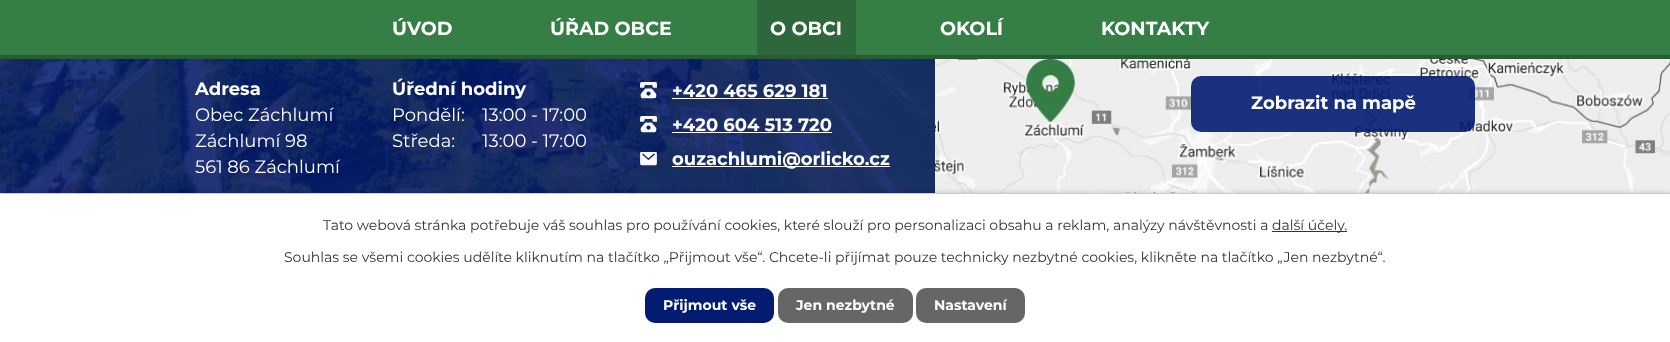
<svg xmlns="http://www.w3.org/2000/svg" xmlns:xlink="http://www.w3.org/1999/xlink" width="1670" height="342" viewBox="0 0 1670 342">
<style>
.cls-1{font:bold 19px Montserrat;fill:#ffffff}
.cls-2{font:bold 18px Montserrat;fill:#ffffff}
.cls-3{font:18px Montserrat;fill:#ffffff}
.cls-4{font:14px Montserrat;fill:#333333}
.cls-5{font:bold 14px Montserrat;fill:#ffffff}
</style>
<rect width="100%" height="100%" fill="#ffffff"/>
<rect fill="#357e46" x="0" y="0" width="1670" height="55"/>
<rect fill="#285c34" x="0" y="55" width="1670" height="4"/>
<rect fill="#2d673b" x="757" y="0" width="99" height="55"/>
<image xlink:href="image0.png" x="0" y="59" width="935" height="134"/>
<image xlink:href="image1.png" x="640" y="82" width="17" height="17"/>
<rect fill="#ffffff" x="672" y="98" width="156" height="1"/>
<image xlink:href="image2.png" x="640" y="116" width="17" height="17"/>
<rect fill="#ffffff" x="672" y="132" width="160" height="1"/>
<image xlink:href="image3.png" x="640" y="152" width="17" height="14"/>
<rect fill="#ffffff" x="672" y="166" width="218" height="1"/>
<image xlink:href="image4.png" x="935" y="59" width="735" height="134"/>
<rect fill="#021c71" fill-opacity="0.9" x="1191" y="76" width="284" height="56" rx="10"/>
<rect fill="#000000" fill-opacity="0.2" filter="blur(2.5px)" x="0" y="193" width="1670" height="149"/>
<rect fill="#ffffff" x="0" y="194" width="1670" height="148"/>
<rect fill="#cccccc" x="0" y="193" width="1670" height="1"/>
<rect fill="#333333" x="1272" y="231" width="75" height="1"/>
<rect fill="#021c71" x="645" y="288" width="129" height="35" rx="10"/>
<rect fill="#666666" x="778" y="288" width="135" height="35" rx="10"/>
<rect fill="#666666" x="916" y="288" width="109" height="35" rx="10"/>
<text class="cls-1" x="392" y="35">ÚVOD</text>
<text class="cls-1" x="550" y="35">ÚŘAD OBCE</text>
<text class="cls-1" x="770" y="35">O OBCI</text>
<text class="cls-1" x="940" y="35">OKOLÍ</text>
<text class="cls-1" x="1101" y="35">KONTAKTY</text>
<text class="cls-2" x="195" y="95">Adresa</text>
<text class="cls-3"><tspan x="195" y="121">Obec Záchlumí</tspan><tspan x="195" y="147">Záchlumí 98</tspan><tspan x="195" y="173">561 86 Záchlumí</tspan></text>
<text class="cls-2" x="392" y="95">Úřední hodiny</text>
<text class="cls-3" x="392" y="121">Pondělí:</text>
<text class="cls-3" x="482" y="121">13:00 - 17:00</text>
<text class="cls-3" x="392" y="147">Středa:</text>
<text class="cls-3" x="482" y="147">13:00 - 17:00</text>
<text class="cls-2"><tspan x="672" y="97">+420 465 629 181</tspan><tspan x="672" y="131">+420 604 513 720</tspan><tspan x="672" y="165">ouzachlumi@orlicko.cz</tspan></text>
<text class="cls-2" x="1251" y="109">Zobrazit na mapě</text>
<text class="cls-4" x="323" y="230">Tato webová stránka potřebuje váš souhlas pro používání cookies, které slouží pro personalizaci obsahu a reklam, analýzy návštěvnosti a</text>
<text class="cls-4" x="1272" y="230">další účely.</text>
<text class="cls-4" x="284" y="262">Souhlas se všemi cookies udělíte kliknutím na tlačítko „Přijmout vše“. Chcete-li přijímat pouze technicky nezbytné cookies, klikněte na tlačítko „Jen nezbytné“.</text>
<text class="cls-5" x="663" y="310">Přijmout vše</text>
<text class="cls-5" x="796" y="310">Jen nezbytné</text>
<text class="cls-5" x="934" y="310">Nastavení</text>
</svg>
